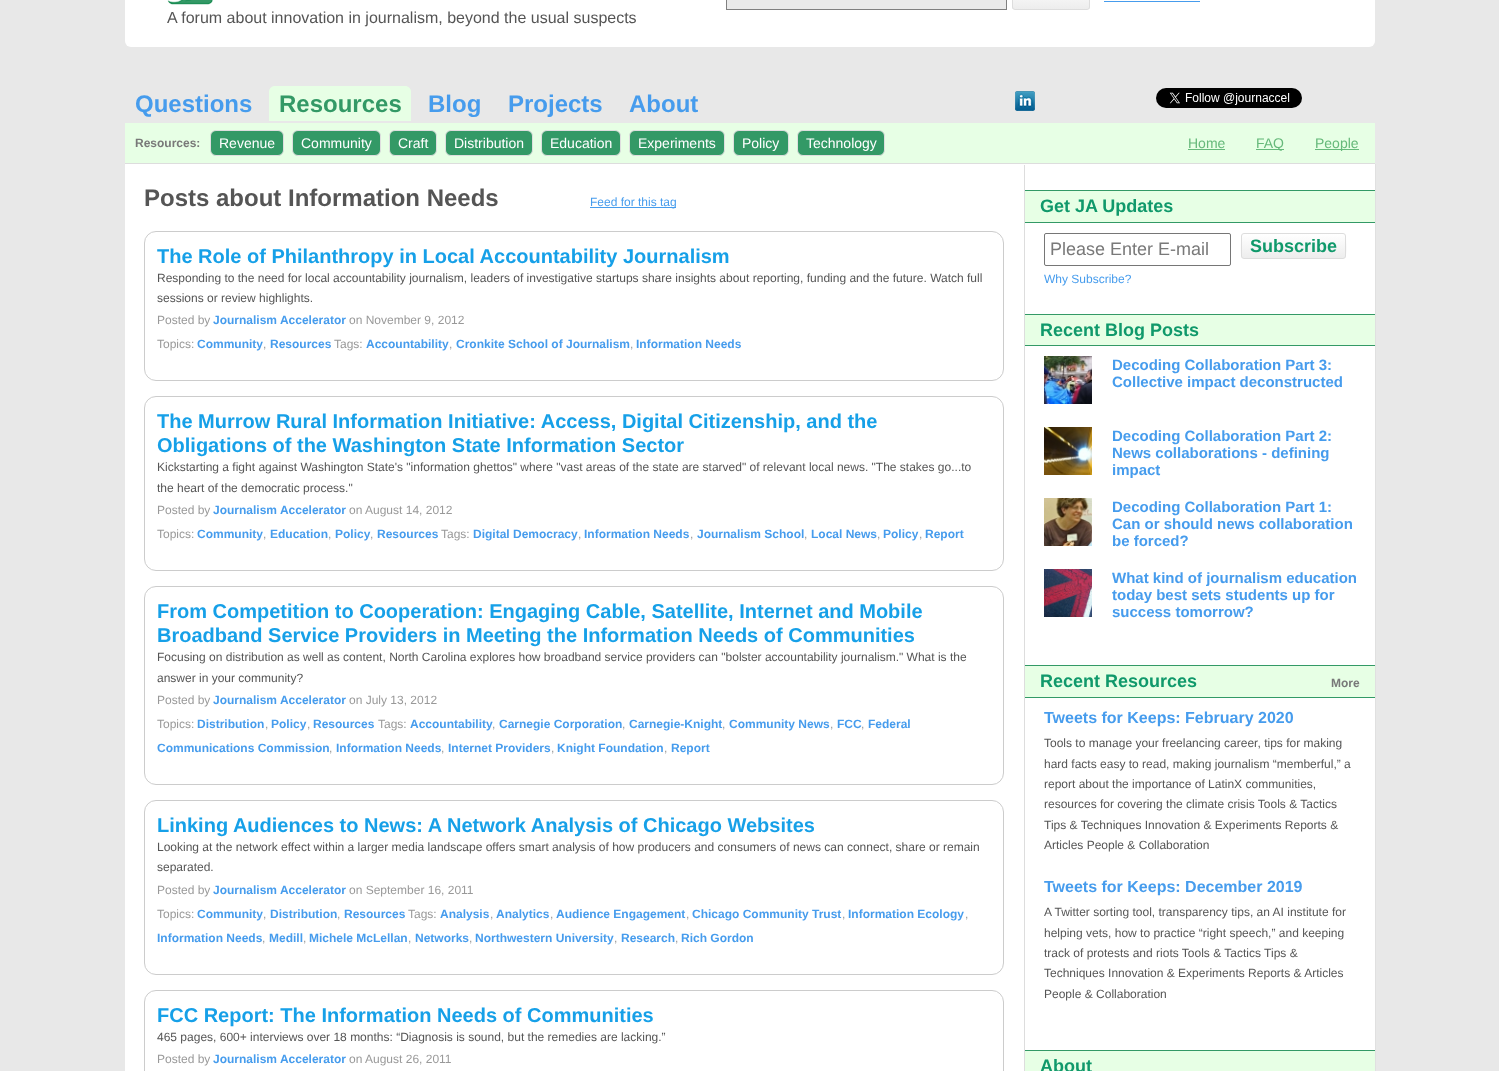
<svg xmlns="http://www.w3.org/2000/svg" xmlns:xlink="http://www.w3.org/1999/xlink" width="1499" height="1071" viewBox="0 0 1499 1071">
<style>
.cls-1{font:16px Liberation Sans;fill:#555555}
.cls-2{font:bold 24px Liberation Sans;fill:#469ced}
.cls-3{font:bold 24px Liberation Sans;fill:#339966}
.cls-4{font:bold 12px Liberation Sans;fill:#797979}
.cls-5{font:14px Liberation Sans;fill:#ffffff}
.cls-6{font:14px Liberation Sans;fill:#66b97a}
.cls-7{font:bold 24px Liberation Sans;fill:#555555}
.cls-8{font:12px Liberation Sans;fill:#469ced}
.cls-9{font:bold 20px Liberation Sans;fill:#16a0e8}
.cls-10{font:12px Liberation Sans;fill:#555555}
.cls-11{font:12px Liberation Sans;fill:#999999}
.cls-12{font:bold 12px Liberation Sans;fill:#469ced}
.cls-13{font:bold 18px Liberation Sans;fill:#10996b}
.cls-14{font:18px Liberation Sans;fill:#797979}
.cls-15{font:bold 15px Liberation Sans;fill:#469ced}
.cls-16{font:bold 16px Liberation Sans;fill:#469ced}
</style>
<defs>
<clipPath id="clip1"><rect x="1012" y="-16" width="78" height="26" rx="3"/></clipPath>
<linearGradient id="g1" gradientUnits="userSpaceOnUse" x1="1051" y1="-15" x2="1051" y2="9"><stop offset="0" stop-color="#ffffff"/><stop offset="1" stop-color="#ededed"/></linearGradient>
<linearGradient id="g2" gradientUnits="userSpaceOnUse" x1="1294" y1="234" x2="1294" y2="258"><stop offset="0" stop-color="#ffffff"/><stop offset="1" stop-color="#ededed"/></linearGradient>
</defs>
<rect width="100%" height="100%" fill="#e8e8e8"/>
<rect fill="#ffffff" x="125" y="-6" width="1250" height="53" rx="6"/>
<rect fill="#eaeaea" stroke="#808080" x="726.5" y="-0.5" width="280" height="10"/>
<g clip-path="url(#clip1)">
<rect fill="url(#g1)" x="1012" y="0" width="78" height="9"/>
</g>
<rect fill="none" stroke="#dddddd" x="1012.5" y="-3.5" width="77" height="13" rx="2.5"/>
<rect fill="#469ced" x="1104" y="1" width="96" height="1"/>
<image xlink:href="image0.png" x="167" y="0" width="46" height="5"/>
<image xlink:href="image1.png" x="1015" y="91" width="20" height="20"/>
<image xlink:href="image2.png" x="1156" y="88" width="146" height="20"/>
<rect fill="#e7ffe5" x="125" y="123" width="1250" height="40"/>
<rect fill="#dddddd" x="125" y="163" width="1250" height="1"/>
<path fill="#e7ffe5" d="M275 86H405C408.5 86 411 88.5 411 92V121H269V92C269 88.5 271.5 86 275 86Z"/>
<rect fill="#339966" stroke="#dedede" x="210.5" y="130.5" width="73" height="25" rx="5.5"/>
<rect fill="#339966" stroke="#dedede" x="292.5" y="130.5" width="88" height="25" rx="5.5"/>
<rect fill="#339966" stroke="#dedede" x="389.5" y="130.5" width="47" height="25" rx="5.5"/>
<rect fill="#339966" stroke="#dedede" x="445.5" y="130.5" width="87" height="25" rx="5.5"/>
<rect fill="#339966" stroke="#dedede" x="541.5" y="130.5" width="79" height="25" rx="5.5"/>
<rect fill="#339966" stroke="#dedede" x="629.5" y="130.5" width="95" height="25" rx="5.5"/>
<rect fill="#339966" stroke="#dedede" x="733.5" y="130.5" width="55" height="25" rx="5.5"/>
<rect fill="#339966" stroke="#dedede" x="797.5" y="130.5" width="87" height="25" rx="5.5"/>
<rect fill="#66b97a" x="1188" y="149" width="37" height="1"/>
<rect fill="#66b97a" x="1256" y="149" width="28" height="1"/>
<rect fill="#66b97a" x="1315" y="149" width="44" height="1"/>
<rect fill="#ffffff" x="125" y="164" width="1250" height="907"/>
<path fill="#e0e0e0" fill-rule="evenodd" d="M125 164H1376V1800C1376 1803 1373 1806 1370 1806H131C128 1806 125 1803 125 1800ZM125 164H1375V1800C1375 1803 1373 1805 1370 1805H131C128 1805 125 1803 125 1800Z"/>
<rect fill="#469ced" x="590" y="207" width="86" height="1"/>
<rect fill="none" stroke="#cccccc" x="144.5" y="231.5" width="859" height="149" rx="11.5"/>
<rect fill="none" stroke="#cccccc" x="144.5" y="396.5" width="859" height="174" rx="11.5"/>
<rect fill="none" stroke="#cccccc" x="144.5" y="586.5" width="859" height="198" rx="11.5"/>
<rect fill="none" stroke="#cccccc" x="144.5" y="800.5" width="859" height="174" rx="11.5"/>
<rect fill="none" stroke="#cccccc" x="144.5" y="990.5" width="859" height="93" rx="11.5"/>
<rect fill="#dddddd" x="1024" y="165" width="1" height="906"/>
<rect fill="#e7ffe5" x="1025" y="191" width="350" height="31"/>
<rect fill="#339966" x="1025" y="190" width="350" height="1"/>
<rect fill="#339966" x="1025" y="222" width="350" height="1"/>
<rect fill="none" stroke="#767676" x="1044.5" y="233.5" width="186" height="32" rx="1.5"/>
<path fill="url(#g2)" d="M1241 236C1241 240 1240 256 1242 258H1345C1347 256 1347 236 1345 234H1242Z"/>
<rect fill="none" stroke="#dddddd" x="1241.5" y="233.5" width="104" height="25" rx="2.5"/>
<rect fill="#e7ffe5" x="1025" y="315" width="350" height="30"/>
<rect fill="#339966" x="1025" y="314" width="350" height="1"/>
<rect fill="#339966" x="1025" y="345" width="350" height="1"/>
<image xlink:href="image3.png" x="1044" y="356" width="48" height="48"/>
<image xlink:href="image4.png" x="1044" y="427" width="48" height="48"/>
<image xlink:href="image5.png" x="1044" y="498" width="48" height="48"/>
<image xlink:href="image6.png" x="1044" y="569" width="48" height="48"/>
<rect fill="#e7ffe5" x="1025" y="666" width="350" height="31"/>
<rect fill="#339966" x="1025" y="665" width="350" height="1"/>
<rect fill="#339966" x="1025" y="697" width="350" height="1"/>
<rect fill="#e7ffe5" x="1025" y="1051" width="350" height="20"/>
<rect fill="#339966" x="1025" y="1050" width="350" height="1"/>
<text class="cls-1" x="167" y="23">A forum about innovation in journalism, beyond the usual suspects</text>
<text class="cls-2" x="135" y="112">Questions</text>
<text class="cls-3" x="279" y="112">Resources</text>
<text class="cls-2" x="428" y="112">Blog</text>
<text class="cls-2" x="508" y="112">Projects</text>
<text class="cls-2" x="629" y="112">About</text>
<text class="cls-4" x="135" y="147">Resources:</text>
<text class="cls-5" x="219" y="148">Revenue</text>
<text class="cls-5" x="301" y="148">Community</text>
<text class="cls-5" x="398" y="148">Craft</text>
<text class="cls-5" x="454" y="148">Distribution</text>
<text class="cls-5" x="550" y="148">Education</text>
<text class="cls-5" x="638" y="148">Experiments</text>
<text class="cls-5" x="742" y="148">Policy</text>
<text class="cls-5" x="806" y="148">Technology</text>
<text class="cls-6" x="1188" y="148">Home</text>
<text class="cls-6" x="1256" y="148">FAQ</text>
<text class="cls-6" x="1315" y="148">People</text>
<text class="cls-7" x="144" y="206">Posts about Information Needs</text>
<text class="cls-8" x="590" y="206">Feed for this tag</text>
<text class="cls-9" x="157" y="263">The Role of Philanthropy in Local Accountability Journalism</text>
<text class="cls-10"><tspan x="157" y="282">Responding to the need for local accountability journalism, leaders of investigative startups share insights about reporting, funding and the future. Watch full</tspan><tspan x="157" y="302">sessions or review highlights.</tspan></text>
<text class="cls-11" x="157" y="324">Posted by</text>
<text class="cls-12" x="213" y="324">Journalism Accelerator</text>
<text class="cls-11" x="349" y="324">on November 9, 2012</text>
<text class="cls-11" x="157" y="348">Topics:</text>
<text class="cls-12" x="197" y="348">Community</text>
<text class="cls-11" x="263" y="348">,</text>
<text class="cls-12" x="270" y="348">Resources</text>
<text class="cls-11" x="334" y="348">Tags:</text>
<text class="cls-12" x="366" y="348">Accountability</text>
<text class="cls-11" x="449" y="348">,</text>
<text class="cls-12" x="456" y="348">Cronkite School of Journalism</text>
<text class="cls-11" x="630" y="348">,</text>
<text class="cls-12" x="636" y="348">Information Needs</text>
<text class="cls-9"><tspan x="157" y="428">The Murrow Rural Information Initiative: Access, Digital Citizenship, and the</tspan><tspan x="157" y="452">Obligations of the Washington State Information Sector</tspan></text>
<text class="cls-10"><tspan x="157" y="471">Kickstarting a fight against Washington State's "information ghettos" where "vast areas of the state are starved" of relevant local news. "The stakes go...to</tspan><tspan x="157" y="492">the heart of the democratic process."</tspan></text>
<text class="cls-11" x="157" y="514">Posted by</text>
<text class="cls-12" x="213" y="514">Journalism Accelerator</text>
<text class="cls-11" x="349" y="514">on August 14, 2012</text>
<text class="cls-11" x="157" y="538">Topics:</text>
<text class="cls-12" x="197" y="538">Community</text>
<text class="cls-11" x="263" y="538">,</text>
<text class="cls-12" x="270" y="538">Education</text>
<text class="cls-11" x="328" y="538">,</text>
<text class="cls-12" x="335" y="538">Policy</text>
<text class="cls-11" x="370" y="538">,</text>
<text class="cls-12" x="377" y="538">Resources</text>
<text class="cls-11" x="441" y="538">Tags:</text>
<text class="cls-12" x="473" y="538">Digital Democracy</text>
<text class="cls-11" x="578" y="538">,</text>
<text class="cls-12" x="584" y="538">Information Needs</text>
<text class="cls-11" x="690" y="538">,</text>
<text class="cls-12" x="697" y="538">Journalism School</text>
<text class="cls-11" x="804" y="538">,</text>
<text class="cls-12" x="811" y="538">Local News</text>
<text class="cls-11" x="877" y="538">,</text>
<text class="cls-12" x="883" y="538">Policy</text>
<text class="cls-11" x="919" y="538">,</text>
<text class="cls-12" x="925" y="538">Report</text>
<text class="cls-9"><tspan x="157" y="618">From Competition to Cooperation: Engaging Cable, Satellite, Internet and Mobile</tspan><tspan x="157" y="642">Broadband Service Providers in Meeting the Information Needs of Communities</tspan></text>
<text class="cls-10"><tspan x="157" y="661">Focusing on distribution as well as content, North Carolina explores how broadband service providers can "bolster accountability journalism." What is the</tspan><tspan x="157" y="682">answer in your community?</tspan></text>
<text class="cls-11" x="157" y="704">Posted by</text>
<text class="cls-12" x="213" y="704">Journalism Accelerator</text>
<text class="cls-11" x="349" y="704">on July 13, 2012</text>
<text class="cls-11" x="157" y="728">Topics:</text>
<text class="cls-12" x="197" y="728">Distribution</text>
<text class="cls-11" x="265" y="728">,</text>
<text class="cls-12" x="271" y="728">Policy</text>
<text class="cls-11" x="307" y="728">,</text>
<text class="cls-12" x="313" y="728">Resources</text>
<text class="cls-11" x="378" y="728">Tags:</text>
<text class="cls-12" x="410" y="728">Accountability</text>
<text class="cls-11" x="492" y="728">,</text>
<text class="cls-12" x="499" y="728">Carnegie Corporation</text>
<text class="cls-11" x="622" y="728">,</text>
<text class="cls-12" x="629" y="728">Carnegie-Knight</text>
<text class="cls-11" x="722" y="728">,</text>
<text class="cls-12" x="729" y="728">Community News</text>
<text class="cls-11" x="830" y="728">,</text>
<text class="cls-12" x="837" y="728">FCC</text>
<text class="cls-11" x="861" y="728">,</text>
<text class="cls-12" x="868" y="728">Federal</text>
<text class="cls-12" x="157" y="752">Communications Commission</text>
<text class="cls-11" x="329" y="752">,</text>
<text class="cls-12" x="336" y="752">Information Needs</text>
<text class="cls-11" x="441" y="752">,</text>
<text class="cls-12" x="448" y="752">Internet Providers</text>
<text class="cls-11" x="551" y="752">,</text>
<text class="cls-12" x="557" y="752">Knight Foundation</text>
<text class="cls-11" x="664" y="752">,</text>
<text class="cls-12" x="671" y="752">Report</text>
<text class="cls-9" x="157" y="832">Linking Audiences to News: A Network Analysis of Chicago Websites</text>
<text class="cls-10"><tspan x="157" y="851">Looking at the network effect within a larger media landscape offers smart analysis of how producers and consumers of news can connect, share or remain</tspan><tspan x="157" y="871">separated.</tspan></text>
<text class="cls-11" x="157" y="894">Posted by</text>
<text class="cls-12" x="213" y="894">Journalism Accelerator</text>
<text class="cls-11" x="349" y="894">on September 16, 2011</text>
<text class="cls-11" x="157" y="918">Topics:</text>
<text class="cls-12" x="197" y="918">Community</text>
<text class="cls-11" x="263" y="918">,</text>
<text class="cls-12" x="270" y="918">Distribution</text>
<text class="cls-11" x="337" y="918">,</text>
<text class="cls-12" x="344" y="918">Resources</text>
<text class="cls-11" x="408" y="918">Tags:</text>
<text class="cls-12" x="440" y="918">Analysis</text>
<text class="cls-11" x="490" y="918">,</text>
<text class="cls-12" x="496" y="918">Analytics</text>
<text class="cls-11" x="550" y="918">,</text>
<text class="cls-12" x="556" y="918">Audience Engagement</text>
<text class="cls-11" x="686" y="918">,</text>
<text class="cls-12" x="692" y="918">Chicago Community Trust</text>
<text class="cls-11" x="842" y="918">,</text>
<text class="cls-12" x="848" y="918">Information Ecology</text>
<text class="cls-11" x="965" y="918">,</text>
<text class="cls-12" x="157" y="942">Information Needs</text>
<text class="cls-11" x="262" y="942">,</text>
<text class="cls-12" x="269" y="942">Medill</text>
<text class="cls-11" x="303" y="942">,</text>
<text class="cls-12" x="309" y="942">Michele McLellan</text>
<text class="cls-11" x="408" y="942">,</text>
<text class="cls-12" x="415" y="942">Networks</text>
<text class="cls-11" x="469" y="942">,</text>
<text class="cls-12" x="475" y="942">Northwestern University</text>
<text class="cls-11" x="614" y="942">,</text>
<text class="cls-12" x="621" y="942">Research</text>
<text class="cls-11" x="675" y="942">,</text>
<text class="cls-12" x="681" y="942">Rich Gordon</text>
<text class="cls-9" x="157" y="1022">FCC Report: The Information Needs of Communities</text>
<text class="cls-10" x="157" y="1041">465 pages, 600+ interviews over 18 months: “Diagnosis is sound, but the remedies are lacking.”</text>
<text class="cls-11" x="157" y="1063">Posted by</text>
<text class="cls-12" x="213" y="1063">Journalism Accelerator</text>
<text class="cls-11" x="349" y="1063">on August 26, 2011</text>
<text class="cls-13" x="1040" y="212">Get JA Updates</text>
<text class="cls-14" x="1050" y="255">Please Enter E-mail</text>
<text class="cls-13" x="1250" y="252">Subscribe</text>
<text class="cls-8" x="1044" y="283">Why Subscribe?</text>
<text class="cls-13" x="1040" y="336">Recent Blog Posts</text>
<text class="cls-15"><tspan x="1112" y="370">Decoding Collaboration Part 3:</tspan><tspan x="1112" y="387">Collective impact deconstructed</tspan></text>
<text class="cls-15"><tspan x="1112" y="441">Decoding Collaboration Part 2:</tspan><tspan x="1112" y="458">News collaborations - defining</tspan><tspan x="1112" y="475">impact</tspan></text>
<text class="cls-15"><tspan x="1112" y="512">Decoding Collaboration Part 1:</tspan><tspan x="1112" y="529">Can or should news collaboration</tspan><tspan x="1112" y="546">be forced?</tspan></text>
<text class="cls-15"><tspan x="1112" y="583">What kind of journalism education</tspan><tspan x="1112" y="600">today best sets students up for</tspan><tspan x="1112" y="617">success tomorrow?</tspan></text>
<text class="cls-13" x="1040" y="687">Recent Resources</text>
<text class="cls-4" x="1331" y="687">More</text>
<text class="cls-16" x="1044" y="723">Tweets for Keeps: February 2020</text>
<text class="cls-10"><tspan x="1044" y="747">Tools to manage your freelancing career, tips for making</tspan><tspan x="1044" y="768">hard facts easy to read, making journalism “memberful,” a</tspan><tspan x="1044" y="788">report about the importance of LatinX communities,</tspan><tspan x="1044" y="808">resources for covering the climate crisis Tools &amp; Tactics</tspan><tspan x="1044" y="829">Tips &amp; Techniques Innovation &amp; Experiments Reports &amp;</tspan><tspan x="1044" y="849">Articles People &amp; Collaboration</tspan></text>
<text class="cls-16" x="1044" y="892">Tweets for Keeps: December 2019</text>
<text class="cls-10"><tspan x="1044" y="916">A Twitter sorting tool, transparency tips, an AI institute for</tspan><tspan x="1044" y="937">helping vets, how to practice “right speech,” and keeping</tspan><tspan x="1044" y="957">track of protests and riots Tools &amp; Tactics Tips &amp;</tspan><tspan x="1044" y="977">Techniques Innovation &amp; Experiments Reports &amp; Articles</tspan><tspan x="1044" y="998">People &amp; Collaboration</tspan></text>
<text class="cls-13" x="1040" y="1072">About</text>
</svg>
